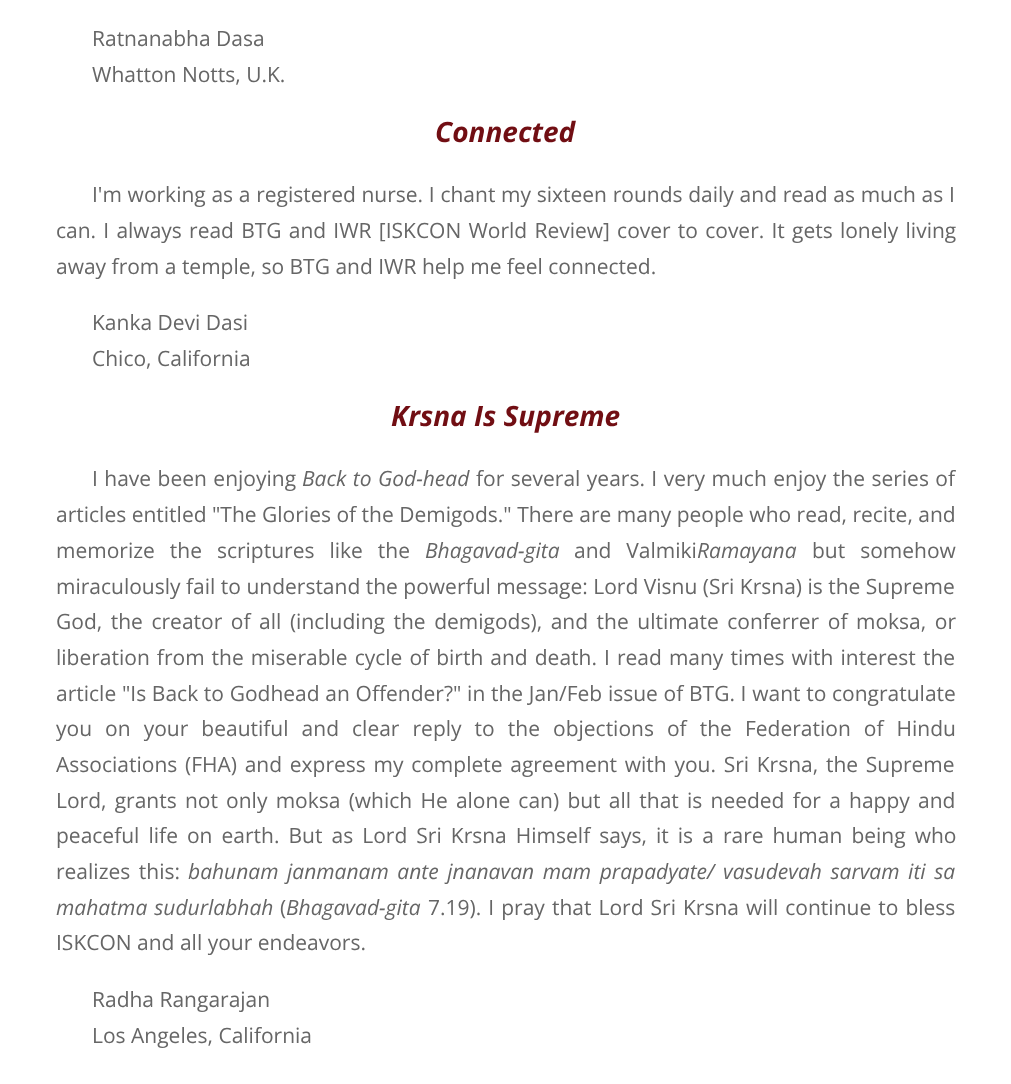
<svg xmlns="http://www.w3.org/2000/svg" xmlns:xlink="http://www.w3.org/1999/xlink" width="1011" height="1084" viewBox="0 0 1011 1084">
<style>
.cls-1{font:21px Open Sans;fill:#666666}
.cls-2{font:italic bold 28px Open Sans;fill:#710e13}
.cls-3{font:italic 21px Open Sans;fill:#666666}
</style>
<rect width="100%" height="100%" fill="#ffffff"/>
<text class="cls-1"><tspan x="92" y="46">Ratnanabha Dasa</tspan><tspan x="92" y="82">Whatton Notts, U.K.</tspan></text>
<text class="cls-2" x="435" y="142">Connected</text>
<text class="cls-1" x="92" y="202" word-spacing="0.25">I'm working as a registered nurse. I chant my sixteen rounds daily and read as much as I</text>
<text class="cls-1"><tspan x="56" y="238" word-spacing="1.75">can. I always read BTG and IWR [ISKCON World Review] cover to cover. It gets lonely living</tspan><tspan x="56" y="274">away from a temple, so BTG and IWR help me feel connected.</tspan></text>
<text class="cls-1"><tspan x="92" y="330">Kanka Devi Dasi</tspan><tspan x="92" y="366">Chico, California</tspan></text>
<text class="cls-2" x="391" y="426">Krsna Is Supreme</text>
<text class="cls-1" x="92" y="486" word-spacing="1">I have been enjoying</text>
<text class="cls-3" x="302" y="486" word-spacing="1">Back to God-head</text>
<text class="cls-1" x="476" y="486" word-spacing="1">for several years. I very much enjoy the series of</text>
<text class="cls-1"><tspan x="56" y="522">articles entitled "The Glories of the Demigods." There are many people who read, recite, and</tspan><tspan x="56" y="558" word-spacing="9.5">memorize the scriptures like the</tspan></text>
<text class="cls-3" x="425" y="558">Bhagavad-gita</text>
<text class="cls-1" x="574" y="558" word-spacing="9.5">and Valmiki</text>
<text class="cls-3" x="697" y="558">Ramayana</text>
<text class="cls-1" x="812" y="558" word-spacing="9.5">but somehow</text>
<text class="cls-1"><tspan x="56" y="594">miraculously fail to understand the powerful message: Lord Visnu (Sri Krsna) is the Supreme</tspan><tspan x="56" y="629" word-spacing="3.1">God, the creator of all (including the demigods), and the ultimate conferrer of moksa, or</tspan><tspan x="56" y="665" word-spacing="1.6">liberation from the miserable cycle of birth and death. I read many times with interest the</tspan><tspan x="56" y="701" word-spacing="0.25">article "Is Back to Godhead an Offender?" in the Jan/Feb issue of BTG. I want to congratulate</tspan><tspan x="56" y="736" word-spacing="7.6">you on your beautiful and clear reply to the objections of the Federation of Hindu</tspan><tspan x="56" y="772" word-spacing="2.25">Associations (FHA) and express my complete agreement with you. Sri Krsna, the Supreme</tspan><tspan x="56" y="808" word-spacing="2.75">Lord, grants not only moksa (which He alone can) but all that is needed for a happy and</tspan><tspan x="56" y="843" word-spacing="3.6">peaceful life on earth. But as Lord Sri Krsna Himself says, it is a rare human being who</tspan><tspan x="56" y="879" word-spacing="3.1">realizes this:</tspan></text>
<text class="cls-3" x="188" y="879" word-spacing="3.1">bahunam janmanam ante jnanavan mam prapadyate/ vasudevah sarvam iti sa</text>
<text class="cls-3" x="56" y="915" word-spacing="1.6">mahatma sudurlabhah</text>
<text class="cls-1" x="280" y="915">(</text>
<text class="cls-3" x="286" y="915">Bhagavad-gita</text>
<text class="cls-1" x="428" y="915" word-spacing="1.6">7.19). I pray that Lord Sri Krsna will continue to bless</text>
<text class="cls-1" x="56" y="950">ISKCON and all your endeavors.</text>
<text class="cls-1"><tspan x="92" y="1007">Radha Rangarajan</tspan><tspan x="92" y="1043">Los Angeles, California</tspan></text>
</svg>
